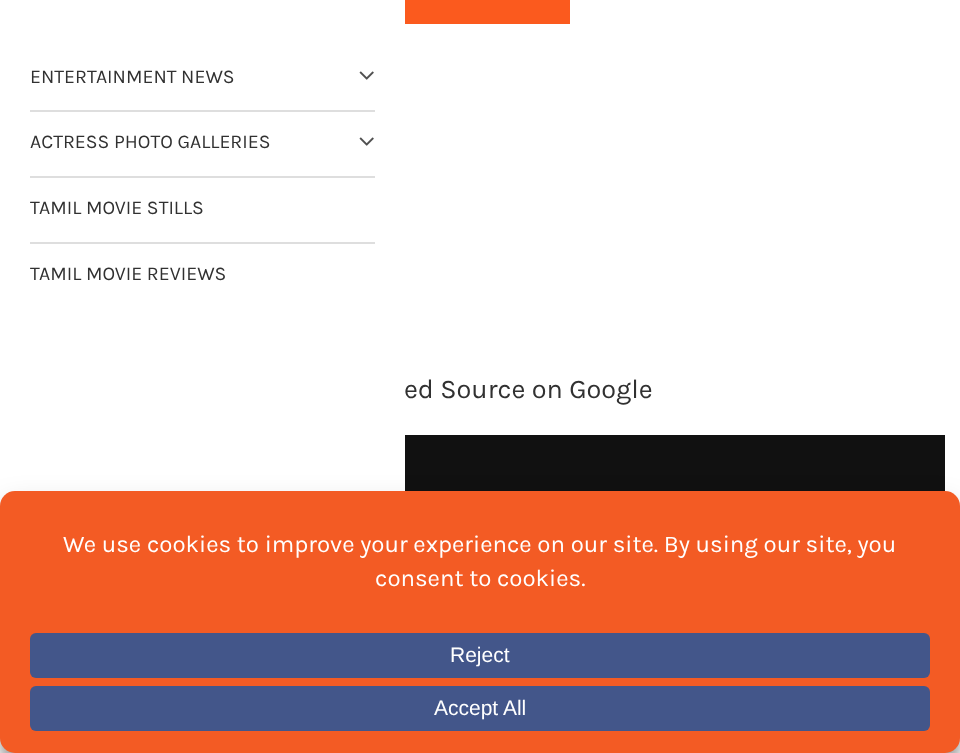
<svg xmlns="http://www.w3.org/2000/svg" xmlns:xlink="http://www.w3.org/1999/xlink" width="960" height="753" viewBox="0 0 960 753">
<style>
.cls-1{font:19.5px Karla;fill:#313131}
.cls-2{font:27px Karla;fill:#313131}
.cls-3{font:24px Karla;fill:#ffffff}
.cls-4{font:21px Liberation Sans;fill:#ffffff}
</style>
<rect width="100%" height="100%" fill="#ffffff"/>
<rect fill="#dedede" x="30" y="110" width="345" height="2"/>
<image xlink:href="image0.png" x="359" y="71" width="15" height="9"/>
<rect fill="#dedede" x="30" y="176" width="345" height="2"/>
<image xlink:href="image0.png" x="359" y="137" width="15" height="9"/>
<rect fill="#dedede" x="30" y="242" width="345" height="2"/>
<rect fill="#fb5a1e" x="405" y="0" width="165" height="24"/>
<rect fill="#111111" x="405" y="435" width="540" height="56"/>
<rect fill="#000000" fill-opacity="0.23" filter="blur(4.5px)" x="0" y="500" width="960" height="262" rx="15"/>
<rect fill="#000000" fill-opacity="0.19" filter="blur(15px)" x="0" y="506" width="960" height="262" rx="15"/>
<rect fill="#f35b24" x="0" y="491" width="960" height="262" rx="15"/>
<rect fill="#43568a" x="30" y="633" width="900" height="45" rx="6"/>
<rect fill="#43568a" x="30" y="686" width="900" height="45" rx="6"/>
<text class="cls-1" x="30" y="83">ENTERTAINMENT NEWS</text>
<text class="cls-1" x="30" y="148">ACTRESS PHOTO GALLERIES</text>
<text class="cls-1" x="30" y="214">TAMIL MOVIE STILLS</text>
<text class="cls-1" x="30" y="280">TAMIL MOVIE REVIEWS</text>
<text class="cls-2" x="404" y="398">ed Source on Google</text>
<text class="cls-3" x="63" y="552">We use cookies to improve your experience on our site. By using our site, you</text>
<text class="cls-3" x="375" y="586">consent to cookies.</text>
<text class="cls-4" x="450" y="662">Reject</text>
<text class="cls-4" x="434" y="715">Accept All</text>
</svg>
